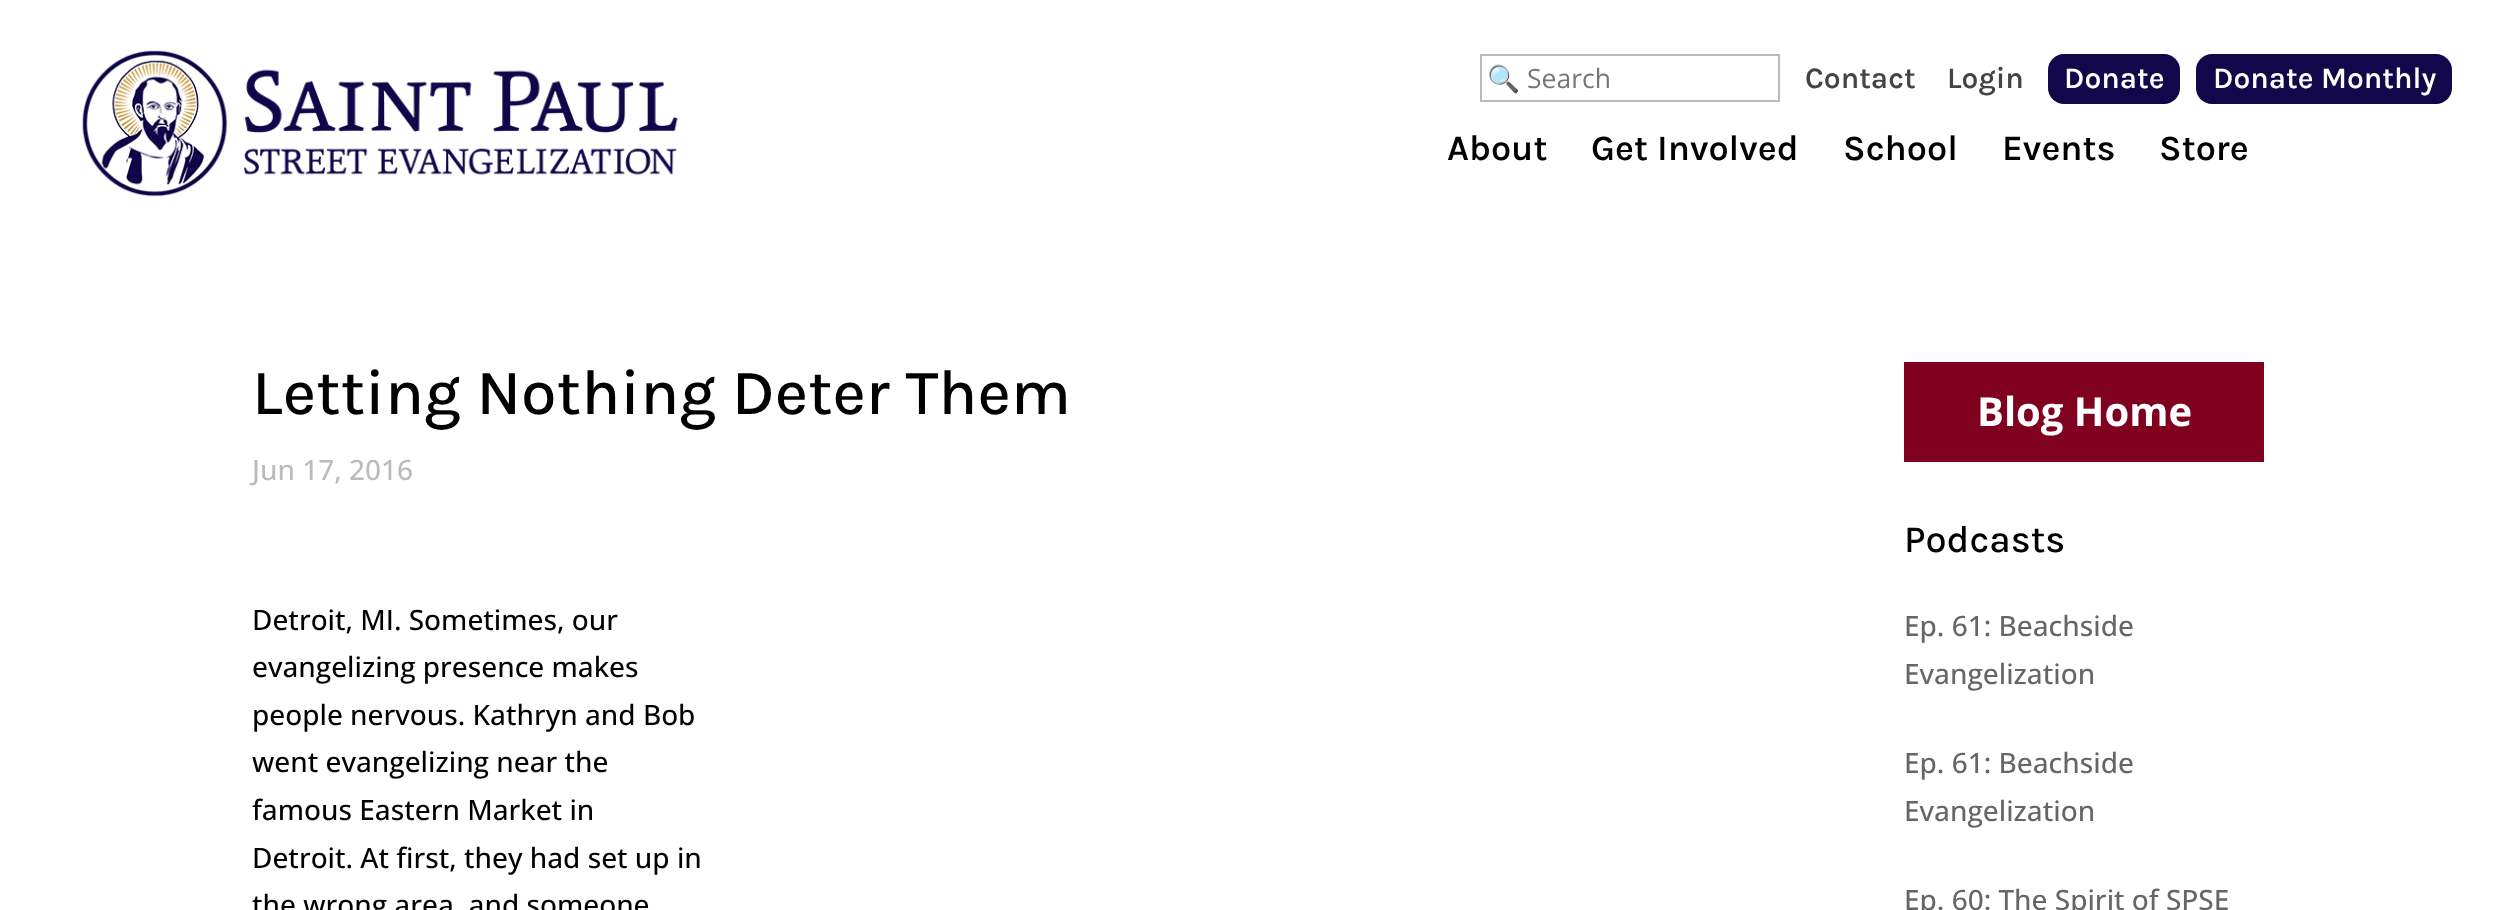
<svg xmlns="http://www.w3.org/2000/svg" xmlns:xlink="http://www.w3.org/1999/xlink" width="2515" height="910" viewBox="0 0 2515 910">
<style>
.cls-1{font:26.5px Noto Color Emoji;fill:#757575}
.cls-2{font:26.5px Open Sans;fill:#757575}
.cls-3{font:600 30px Karla;fill:#444444}
.cls-4{font:600 30px Karla;fill:#ffffff}
.cls-5{font:600 36px Karla;fill:#000000}
.cls-6{font:500 64px Karla;fill:#000000}
.cls-7{font:500 28px Open Sans;fill:#bbbbbb}
.cls-8{font:500 28px Open Sans;fill:#000000}
.cls-9{font:bold 40px Open Sans;fill:#ffffff}
.cls-10{font:500 38px Karla;fill:#000000}
.cls-11{font:500 28px Open Sans;fill:#666666}
</style>
<rect width="100%" height="100%" fill="#ffffff"/>
<image xlink:href="image0.png" x="82" y="50" width="596" height="147"/>
<rect fill="none" stroke="#bbbbbb" stroke-width="2" x="1481" y="55" width="298" height="46"/>
<rect fill="#12074b" x="2048" y="54" width="132" height="50" rx="16"/>
<rect fill="#12074b" x="2196" y="54" width="256" height="50" rx="16"/>
<rect fill="#800020" x="1904" y="362" width="360" height="100"/>
<text class="cls-1" x="1487" y="88">🔍</text>
<text class="cls-2" x="1527" y="88">Search</text>
<text class="cls-3" x="1805" y="88">Contact</text>
<text class="cls-3" x="1947" y="88">Login</text>
<text class="cls-4" x="2064" y="88">Donate</text>
<text class="cls-4" x="2213" y="88">Donate Monthly</text>
<text class="cls-5" x="1447" y="160">About</text>
<text class="cls-5" x="1591" y="160">Get Involved</text>
<text class="cls-5" x="1843" y="160">School</text>
<text class="cls-5" x="2002" y="160">Events</text>
<text class="cls-5" x="2159" y="160">Store</text>
<text class="cls-6" x="252" y="414">Letting Nothing Deter Them</text>
<text class="cls-7" x="252" y="480">Jun 17, 2016</text>
<text class="cls-8"><tspan x="252" y="630">Detroit, MI. Sometimes, our</tspan><tspan x="252" y="677">evangelizing presence makes</tspan><tspan x="252" y="725">people nervous. Kathryn and Bob</tspan><tspan x="252" y="772">went evangelizing near the</tspan><tspan x="252" y="820">famous Eastern Market in</tspan><tspan x="252" y="868">Detroit. At first, they had set up in</tspan><tspan x="252" y="915">the wrong area, and someone</tspan></text>
<text class="cls-9" x="1977" y="426">Blog Home</text>
<text class="cls-10" x="1904" y="552">Podcasts</text>
<text class="cls-11"><tspan x="1904" y="636">Ep. 61: Beachside</tspan><tspan x="1904" y="684">Evangelization</tspan></text>
<text class="cls-11"><tspan x="1904" y="773">Ep. 61: Beachside</tspan><tspan x="1904" y="821">Evangelization</tspan></text>
<text class="cls-11" x="1904" y="910">Ep. 60: The Spirit of SPSE</text>
</svg>
